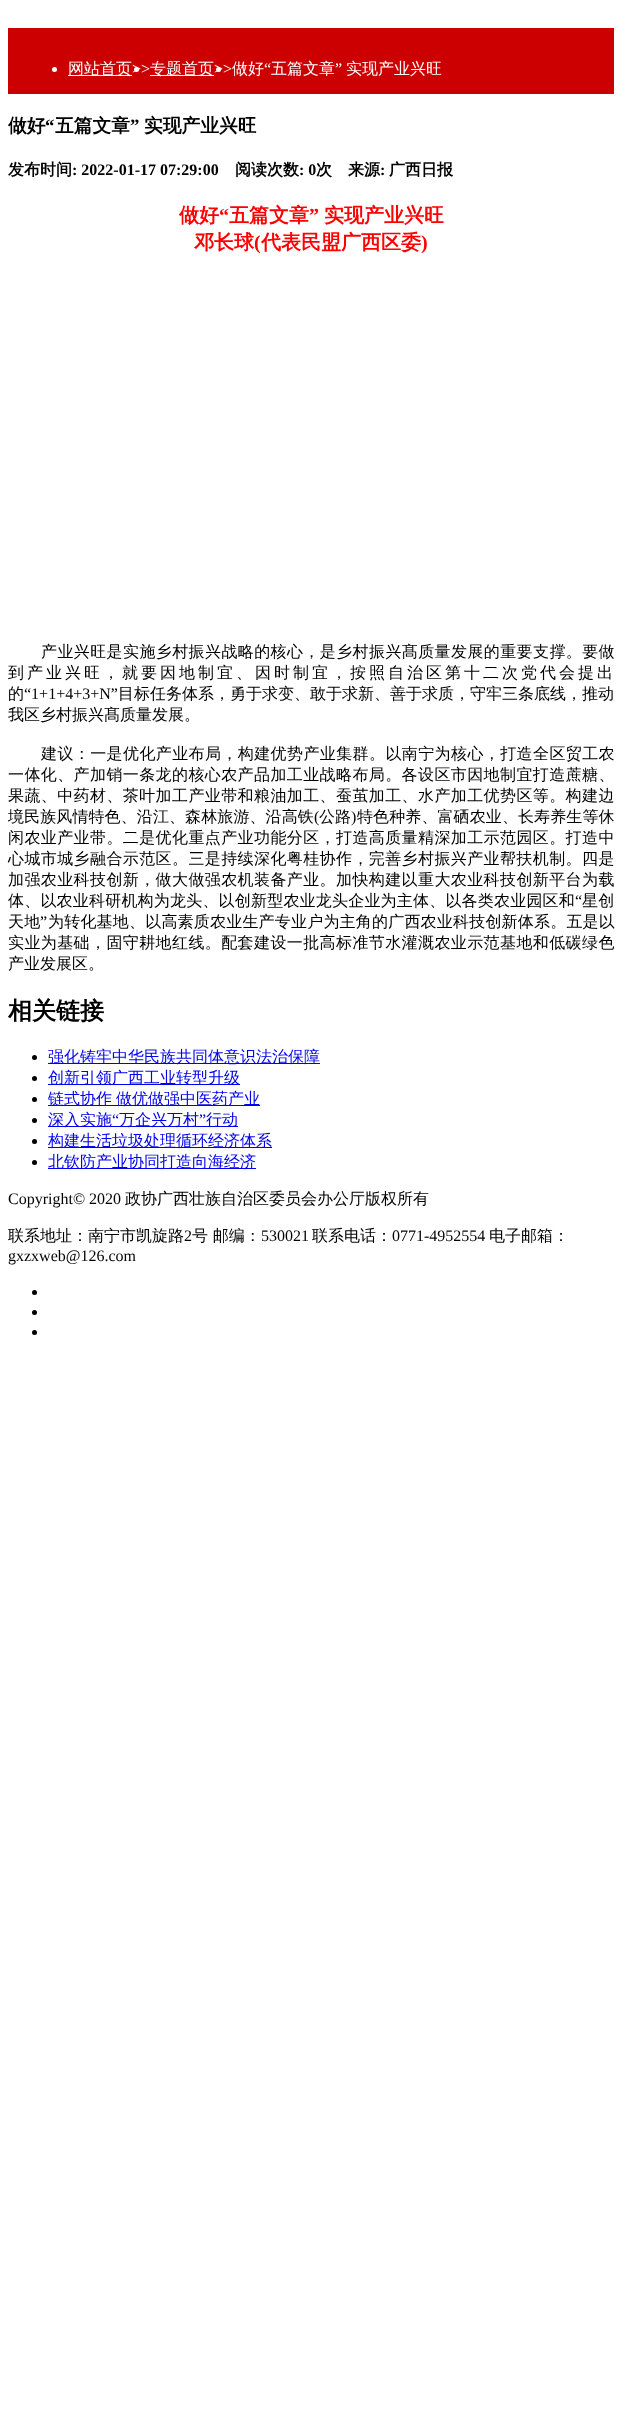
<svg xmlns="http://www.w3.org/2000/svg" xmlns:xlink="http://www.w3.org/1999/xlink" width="622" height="2430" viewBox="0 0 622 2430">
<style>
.cls-1{font:500 16px WenQuanYi Zen Hei;fill:#ffffff}
.cls-2{font:16px Liberation Serif;fill:#ffffff}
.cls-3{font:bold 18.75px WenQuanYi Zen Hei;fill:#000000}
.cls-4{font:bold 18.75px Liberation Serif;fill:#000000}
.cls-5{font:bold 16px WenQuanYi Zen Hei;fill:#000000}
.cls-6{font:bold 16px Liberation Serif;fill:#000000}
.cls-7{font:bold 20px WenQuanYi Zen Hei;fill:#ff0000}
.cls-8{font:bold 20px Liberation Serif;fill:#ff0000}
.cls-9{font:500 16px WenQuanYi Zen Hei;letter-spacing:0.4px;fill:#000000}
.cls-10{font:500 16px WenQuanYi Zen Hei;letter-spacing:3px;fill:#000000}
.cls-11{font:500 16px WenQuanYi Zen Hei;fill:#000000}
.cls-12{font:16px Liberation Serif;fill:#000000}
.cls-13{font:500 16px WenQuanYi Zen Hei;letter-spacing:0.1px;fill:#000000}
.cls-14{font:16px Liberation Serif;letter-spacing:0.1px;fill:#000000}
.cls-15{font:500 16px WenQuanYi Zen Hei;letter-spacing:0.2px;fill:#000000}
.cls-16{font:16px Liberation Serif;letter-spacing:0.2px;fill:#000000}
.cls-17{font:bold 24px WenQuanYi Zen Hei;fill:#000000}
.cls-18{font:500 16px WenQuanYi Zen Hei;fill:#0000ee}
.cls-19{font:16px Liberation Serif;fill:#0000ee}
</style>
<rect width="100%" height="100%" fill="#ffffff"/>
<rect fill="#cc0000" x="8" y="28" width="606" height="66"/>
<circle fill="#ffffff" cx="54.5" cy="69.5" r="2.5"/>
<rect fill="#ffffff" x="68" y="75" width="64" height="1"/>
<circle fill="#ffffff" cx="136.5" cy="69.5" r="2.5"/>
<rect fill="#ffffff" x="150" y="75" width="64" height="1"/>
<circle fill="#ffffff" cx="218.5" cy="69.5" r="2.5"/>
<circle fill="#000000" cx="34.5" cy="1057.5" r="2.5"/>
<rect fill="#0000ee" x="48" y="1063" width="272" height="1"/>
<circle fill="#000000" cx="34.5" cy="1078.5" r="2.5"/>
<rect fill="#0000ee" x="48" y="1084" width="192" height="1"/>
<circle fill="#000000" cx="34.5" cy="1099.5" r="2.5"/>
<rect fill="#0000ee" x="48" y="1105" width="212" height="1"/>
<rect fill="#0000ee" x="48" y="1126" width="190" height="1"/>
<circle fill="#000000" cx="34.5" cy="1120.5" r="2.5"/>
<circle fill="#000000" cx="34.5" cy="1141.5" r="2.5"/>
<rect fill="#0000ee" x="48" y="1147" width="224" height="1"/>
<circle fill="#000000" cx="34.5" cy="1162.5" r="2.5"/>
<rect fill="#0000ee" x="48" y="1168" width="208" height="1"/>
<circle fill="#000000" cx="34.5" cy="1292.5" r="2.5"/>
<circle fill="#000000" cx="34.5" cy="1312.5" r="2.5"/>
<circle fill="#000000" cx="34.5" cy="1332.5" r="2.5"/>
<text class="cls-1" x="68" y="74">网站首页</text>
<text class="cls-2" x="132" y="74">&gt;&gt;</text>
<text class="cls-1" x="150" y="74">专题首页</text>
<text class="cls-2" x="214" y="74">&gt;&gt;</text>
<text class="cls-1" x="232" y="74">做好</text>
<text class="cls-2" x="264" y="74">“</text>
<text class="cls-1" x="271" y="74">五篇文章</text>
<text class="cls-2" x="335" y="74">”</text>
<text class="cls-1" x="346" y="74">实现产业兴旺</text>
<text class="cls-3" x="8" y="132">做好</text>
<text class="cls-4" x="45" y="132">“</text>
<text class="cls-3" x="55" y="132">五篇文章</text>
<text class="cls-4" x="130" y="132">”</text>
<text class="cls-3" x="144" y="132">实现产业兴旺</text>
<text class="cls-5" x="8" y="175">发布时间</text>
<text class="cls-6" x="72" y="175">: 2022-01-17 07:29:00</text>
<text class="cls-5" x="235" y="175">阅读次数</text>
<text class="cls-6" x="299" y="175">: 0</text>
<text class="cls-5" x="316" y="175">次</text>
<text class="cls-5" x="348" y="175">来源</text>
<text class="cls-6" x="380" y="175">:</text>
<text class="cls-5" x="389" y="175">广西日报</text>
<text class="cls-7" x="179" y="222">做好</text>
<text class="cls-8" x="219" y="222">“</text>
<text class="cls-7" x="229" y="222">五篇文章</text>
<text class="cls-8" x="309" y="222">”</text>
<text class="cls-7" x="324" y="222">实现产业兴旺</text>
<text class="cls-7" x="194" y="249">邓长球</text>
<text class="cls-8" x="254" y="249">(</text>
<text class="cls-7" x="261" y="249">代表民盟广西区委</text>
<text class="cls-8" x="421" y="249">)</text>
<text class="cls-9" x="41" y="657">产业兴旺是实施乡村振兴战略的核心，是乡村振兴髙质量发展的重要支撑。要做</text>
<text class="cls-10" x="8" y="678">到产业兴旺，就要因地制宜、因时制宜，按照自治区第十二次党代会提出</text>
<text class="cls-11" x="8" y="699">的</text>
<text class="cls-12" x="24" y="699">“1+1+4+3+N”</text>
<text class="cls-11" x="118" y="699">目标任务体系，勇于求变、敢于求新、善于求质，守牢三条底线，推动</text>
<text class="cls-11" x="8" y="720">我区乡村振兴髙质量发展。</text>
<text class="cls-9" x="41" y="759">建议：一是优化产业布局，构建优势产业集群。以南宁为核心，打造全区贸工农</text>
<text class="cls-9"><tspan x="8" y="780">一体化、产加销一条龙的核心农产品加工业战略布局。各设区市因地制宜打造蔗糖、</tspan><tspan x="8" y="801">果蔬、中药材、茶叶加工产业带和粮油加工、蚕茧加工、水产加工优势区等。构建边</tspan></text>
<text class="cls-13" x="8" y="822">境民族风情特色、沿江、森林旅游、沿高铁</text>
<text class="cls-14" x="314" y="822">(</text>
<text class="cls-13" x="319" y="822">公路</text>
<text class="cls-14" x="351" y="822">)</text>
<text class="cls-13" x="357" y="822">特色种养、富硒农业、长寿养生等休</text>
<text class="cls-9"><tspan x="8" y="843">闲农业产业带。二是优化重点产业功能分区，打造高质量精深加工示范园区。打造中</tspan><tspan x="8" y="864">心城市城乡融合示范区。三是持续深化粤桂协作，完善乡村振兴产业帮扶机制。四是</tspan><tspan x="8" y="885">加强农业科技创新，做大做强农机装备产业。加快构建以重大农业科技创新平台为载</tspan></text>
<text class="cls-15" x="8" y="906">体、以农业科研机构为龙头、以创新型农业龙头企业为主体、以各类农业园区和</text>
<text class="cls-16" x="575" y="906">“</text>
<text class="cls-15" x="582" y="906">星创</text>
<text class="cls-15" x="8" y="927">天地</text>
<text class="cls-16" x="40" y="927">”</text>
<text class="cls-15" x="48" y="927">为转化基地、以高素质农业生产专业户为主角的广西农业科技创新体系。五是以</text>
<text class="cls-9" x="8" y="948">实业为基础，固守耕地红线。配套建设一批高标准节水灌溉农业示范基地和低碳绿色</text>
<text class="cls-11" x="8" y="969">产业发展区。</text>
<text class="cls-17" x="8" y="1019">相关链接</text>
<text class="cls-18"><tspan x="48" y="1062">强化铸牢中华民族共同体意识法治保障</tspan><tspan x="48" y="1083">创新引领广西工业转型升级</tspan><tspan x="48" y="1104">链式协作</tspan></text>
<text class="cls-18" x="116" y="1104">做优做强中医药产业</text>
<text class="cls-18" x="48" y="1125">深入实施</text>
<text class="cls-19" x="112" y="1125">“</text>
<text class="cls-18" x="119" y="1125">万企兴万村</text>
<text class="cls-19" x="199" y="1125">”</text>
<text class="cls-18" x="206" y="1125">行动</text>
<text class="cls-18"><tspan x="48" y="1146">构建生活垃圾处理循环经济体系</tspan><tspan x="48" y="1167">北钦防产业协同打造向海经济</tspan></text>
<text class="cls-12" x="8" y="1204">Copyright© 2020</text>
<text class="cls-11" x="125" y="1204">政协广西壮族自治区委员会办公厅版权所有</text>
<text class="cls-11" x="8" y="1241">联系地址：南宁市凯旋路</text>
<text class="cls-12" x="184" y="1241">2</text>
<text class="cls-11" x="192" y="1241">号 邮编：</text>
<text class="cls-12" x="261" y="1241">530021</text>
<text class="cls-11" x="312" y="1241">联系电话：</text>
<text class="cls-12" x="392" y="1241">0771-4952554</text>
<text class="cls-11" x="489" y="1241">电子邮箱：</text>
<text class="cls-12" x="8" y="1261">gxzxweb@126.com</text>
</svg>
